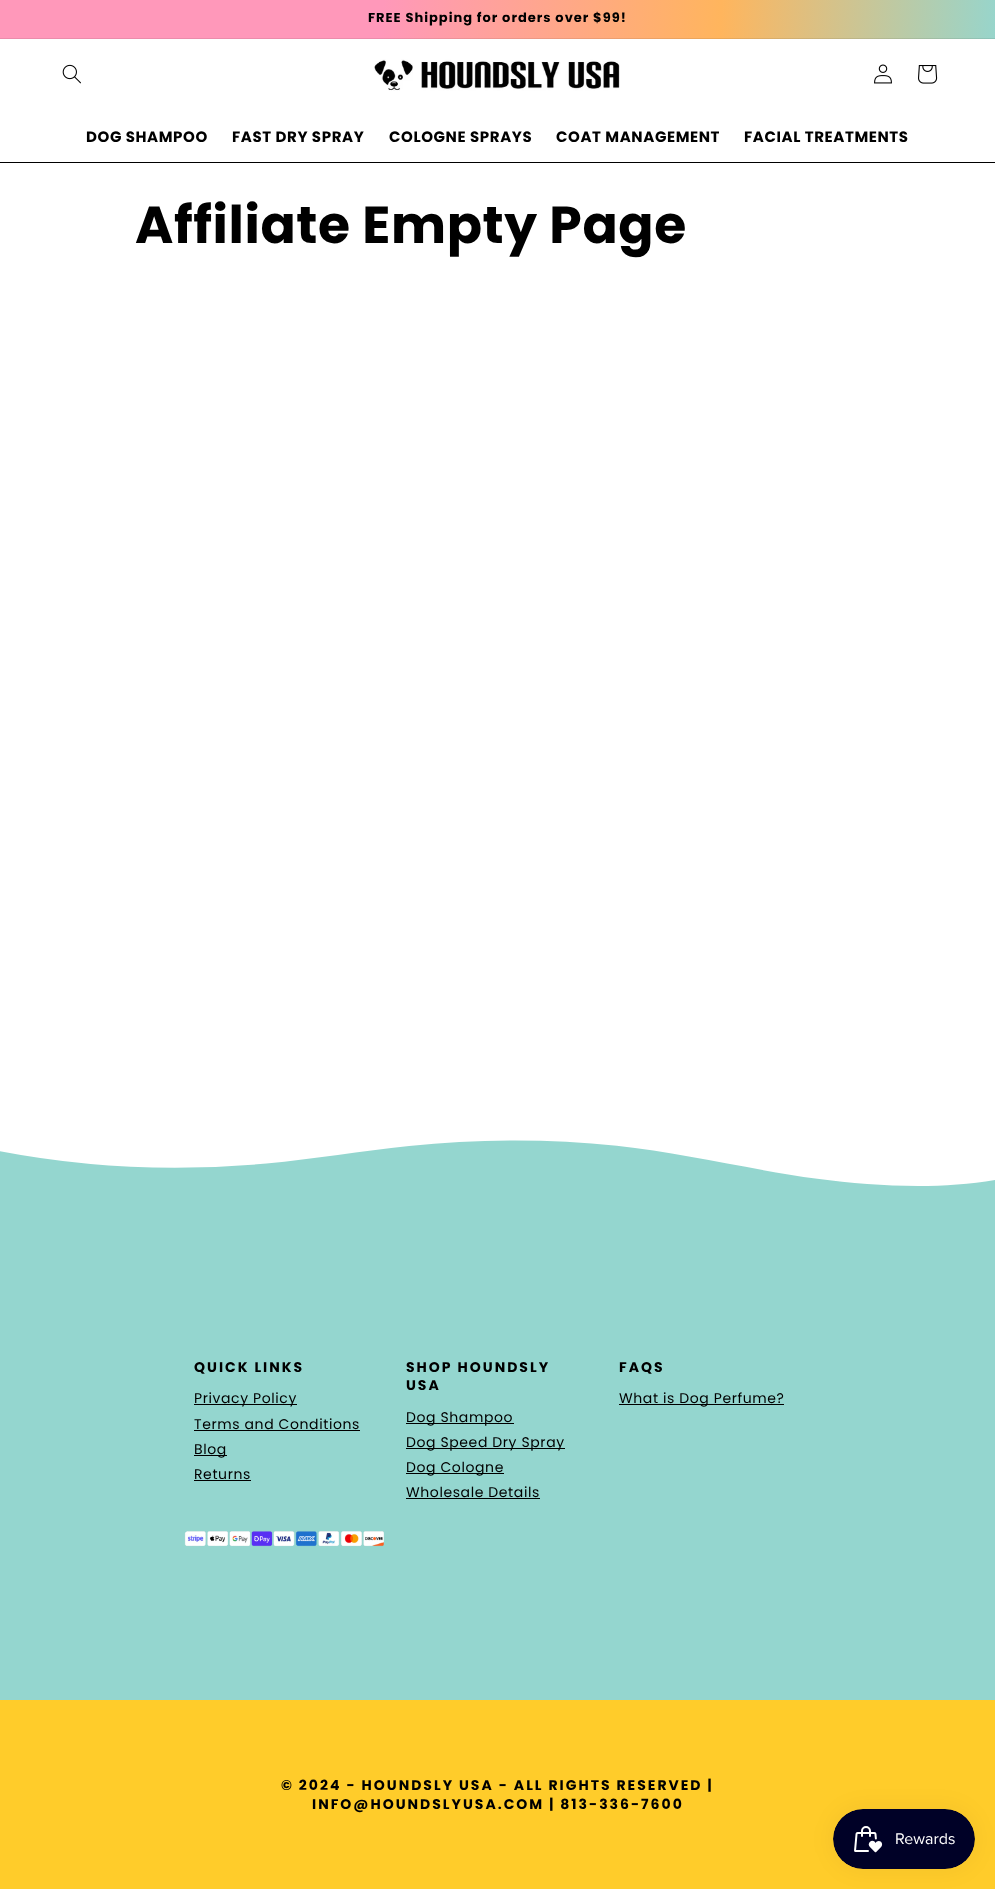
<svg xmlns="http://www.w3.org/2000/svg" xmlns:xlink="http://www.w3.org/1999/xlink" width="995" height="1889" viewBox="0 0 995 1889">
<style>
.cls-1{font:bold 13px Poppins;letter-spacing:1px;fill:#000000}
.cls-2{font:bold 15px Poppins;letter-spacing:0.6px;fill:#000000}
.cls-3{font:bold 52px Poppins;letter-spacing:0.6px;fill:#000000}
.cls-4{font:bold 14px Poppins;letter-spacing:2px;fill:#000000}
.cls-5{font:14px Poppins;letter-spacing:0.6px;fill:#000000}
</style>
<defs>
<linearGradient id="g1" gradientUnits="userSpaceOnUse" x1="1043" y1="973" x2="-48" y2="916"><stop offset="0.08" stop-color="#94d6cf"/><stop offset="0.34" stop-color="#ffb55d"/><stop offset="0.65" stop-color="#ff98ba"/></linearGradient>
<linearGradient id="g2" gradientUnits="userSpaceOnUse" x1="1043" y1="973" x2="-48" y2="916"><stop offset="0.08" stop-color="#88c5be"/><stop offset="0.34" stop-color="#eba756"/><stop offset="0.65" stop-color="#eb8cab"/></linearGradient>
</defs>
<rect width="100%" height="100%" fill="#ffffff"/>
<rect fill="url(#g1)" x="0" y="0" width="995" height="38"/>
<rect fill="url(#g2)" x="0" y="38" width="995" height="1"/>
<rect fill="#000000" x="0" y="162" width="995" height="1"/>
<image xlink:href="image0.png" x="62" y="64" width="19" height="20"/>
<image xlink:href="image1.png" x="374" y="59" width="246" height="32"/>
<image xlink:href="image2.png" x="874" y="64" width="18" height="20"/>
<image xlink:href="image3.png" x="918" y="65" width="20" height="19"/>
<image xlink:href="image4.png" x="0" y="1140" width="995" height="50"/>
<rect fill="#94d6cf" x="0" y="1190" width="995" height="510"/>
<rect fill="#000000" x="194" y="1404" width="103" height="1"/>
<rect fill="#000000" x="194" y="1430" width="166" height="1"/>
<rect fill="#000000" x="194" y="1455" width="33" height="1"/>
<rect fill="#000000" x="194" y="1480" width="57" height="1"/>
<rect fill="#000000" x="406" y="1423" width="108" height="1"/>
<rect fill="#000000" x="406" y="1448" width="159" height="1"/>
<rect fill="#000000" x="406" y="1473" width="98" height="1"/>
<rect fill="#000000" x="406" y="1498" width="134" height="1"/>
<rect fill="#000000" x="619" y="1404" width="165" height="1"/>
<image xlink:href="image5.png" x="184" y="1531" width="200" height="16"/>
<rect fill="#ffcc2a" x="0" y="1700" width="995" height="189"/>
<rect fill="#000000" fill-opacity="0.05" filter="blur(12.5px)" x="833" y="1809" width="142" height="60" rx="30"/>
<image xlink:href="image6.png" x="833" y="1809" width="142" height="60"/>
<text class="cls-1" x="368" y="22">FREE Shipping for orders over $99!</text>
<text class="cls-2" x="86" y="142">DOG SHAMPOO</text>
<text class="cls-2" x="232" y="142">FAST DRY SPRAY</text>
<text class="cls-2" x="389" y="142">COLOGNE SPRAYS</text>
<text class="cls-2" x="556" y="142">COAT MANAGEMENT</text>
<text class="cls-2" x="744" y="142">FACIAL TREATMENTS</text>
<text class="cls-3" x="135" y="243">Affiliate Empty Page</text>
<text class="cls-4" x="194" y="1372">QUICK LINKS</text>
<text class="cls-5"><tspan x="194" y="1403">Privacy Policy</tspan><tspan x="194" y="1429">Terms and Conditions</tspan><tspan x="194" y="1454">Blog</tspan><tspan x="194" y="1479">Returns</tspan></text>
<text class="cls-4"><tspan x="406" y="1372">SHOP HOUNDSLY</tspan><tspan x="406" y="1390">USA</tspan></text>
<text class="cls-5"><tspan x="406" y="1422">Dog Shampoo</tspan><tspan x="406" y="1447">Dog Speed Dry Spray</tspan><tspan x="406" y="1472">Dog Cologne</tspan><tspan x="406" y="1497">Wholesale Details</tspan></text>
<text class="cls-4" x="619" y="1372">FAQS</text>
<text class="cls-5" x="619" y="1403">What is Dog Perfume?</text>
<text class="cls-4" x="281" y="1790">© 2024 - HOUNDSLY USA - ALL RIGHTS RESERVED |</text>
<text class="cls-4" x="312" y="1809">INFO@HOUNDSLYUSA.COM | 813-336-7600</text>
</svg>
